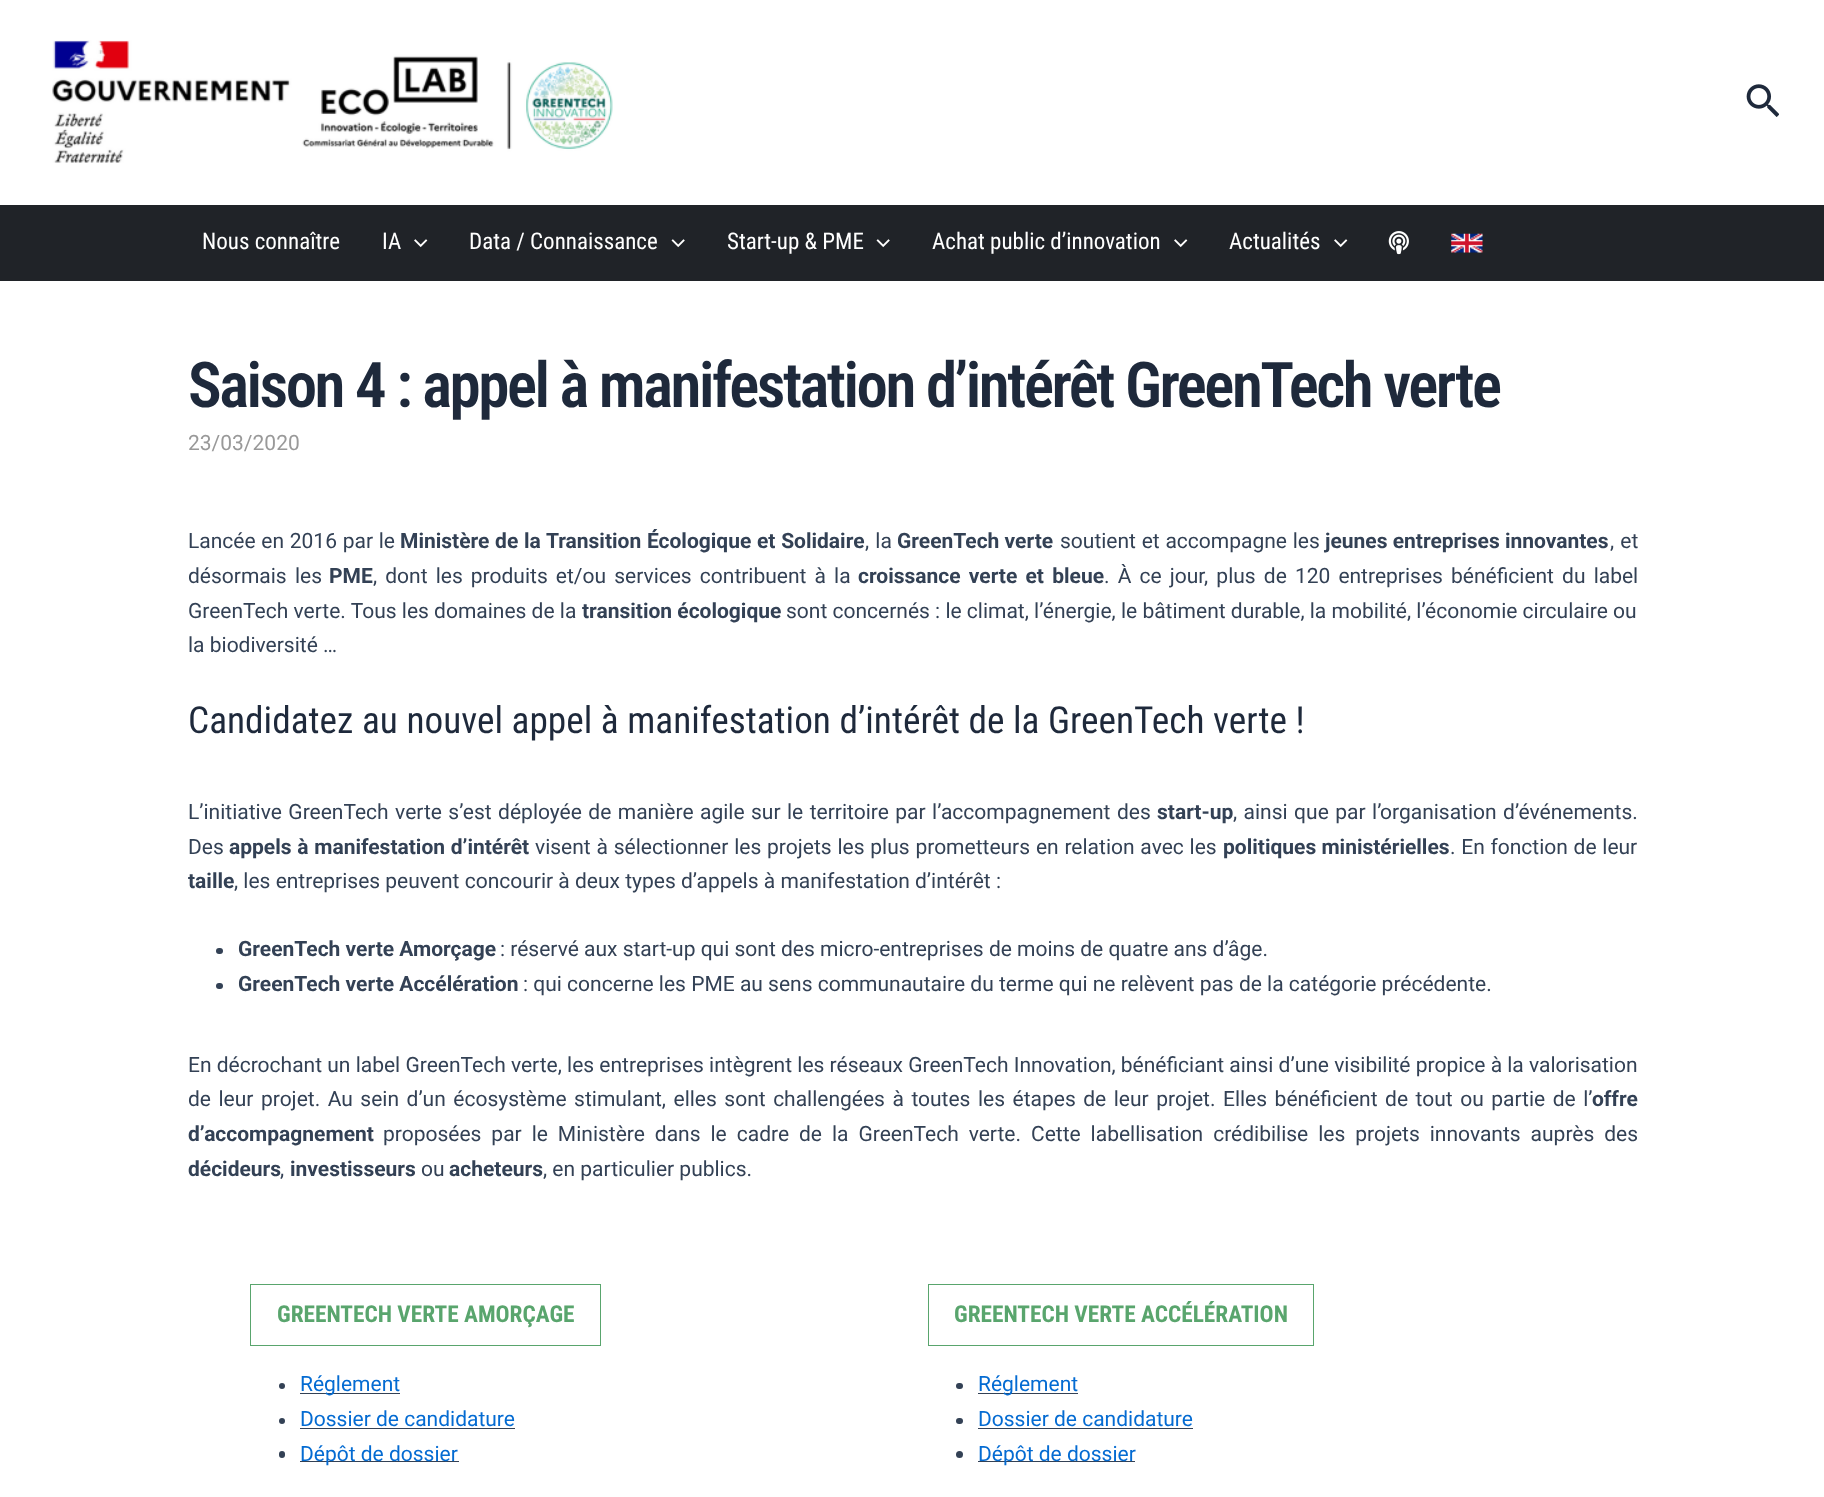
<svg xmlns="http://www.w3.org/2000/svg" xmlns:xlink="http://www.w3.org/1999/xlink" width="1824" height="1497" viewBox="0 0 1824 1497">
<style>
.cls-1{font:23px Roboto Condensed;fill:#ffffff}
.cls-2{font:600 63px Roboto Condensed;letter-spacing:-2.5px;fill:#1e293b}
.cls-3{font:21px Roboto;fill:#999999}
.cls-4{font:21px Roboto;fill:#334155}
.cls-5{font:bold 21px Roboto;fill:#334155}
.cls-6{font:37.3px Roboto Condensed;fill:#1e293b}
.cls-7{font:bold 23.3px Roboto Condensed;fill:#59a56d}
.cls-8{font:21px Roboto;fill:#046bd2}
</style>
<rect width="100%" height="100%" fill="#ffffff"/>
<image xlink:href="image0.png" x="52" y="40" width="561" height="123"/>
<image xlink:href="image1.png" x="1746" y="84" width="33" height="33"/>
<rect fill="#202328" x="0" y="205" width="1824" height="76"/>
<image xlink:href="image2.png" x="414" y="239" width="14" height="9"/>
<image xlink:href="image3.png" x="671" y="239" width="14" height="9"/>
<image xlink:href="image3.png" x="876" y="239" width="14" height="9"/>
<image xlink:href="image2.png" x="1174" y="239" width="14" height="9"/>
<image xlink:href="image2.png" x="1334" y="239" width="14" height="9"/>
<image xlink:href="image4.png" x="1388" y="231" width="21" height="24"/>
<image xlink:href="image5.png" x="1451" y="233" width="32" height="20"/>
<rect fill="#334155" x="216" y="948" width="7" height="6" rx="3"/>
<rect fill="#334155" x="216" y="983" width="7" height="6" rx="3"/>
<rect fill="none" stroke="#59a56d" x="250.5" y="1284.5" width="350" height="61"/>
<circle fill="#334155" cx="282" cy="1386" r="3"/>
<rect fill="#334155" x="300" y="1393" width="100" height="1"/>
<circle fill="#334155" cx="282" cy="1421" r="3"/>
<rect fill="#334155" x="300" y="1428" width="215" height="1"/>
<rect fill="#334155" x="279" y="1451" width="6" height="7" rx="3"/>
<rect fill="#334155" x="300" y="1461" width="159" height="1"/>
<rect fill="none" stroke="#59a56d" x="928.5" y="1284.5" width="385" height="61"/>
<rect fill="#334155" x="956" y="1383" width="7" height="6" rx="3"/>
<rect fill="#334155" x="978" y="1393" width="100" height="1"/>
<rect fill="#334155" x="956" y="1418" width="7" height="6" rx="3"/>
<rect fill="#334155" x="978" y="1428" width="215" height="1"/>
<circle fill="#334155" cx="959.5" cy="1454.5" r="3.5"/>
<rect fill="#334155" x="978" y="1461" width="157" height="1"/>
<text class="cls-1" x="202" y="249">Nous connaître</text>
<text class="cls-1" x="382" y="249">IA</text>
<text class="cls-1" x="469" y="249">Data / Connaissance</text>
<text class="cls-1" x="727" y="249">Start-up &amp; PME</text>
<text class="cls-1" x="932" y="249">Achat public d’innovation</text>
<text class="cls-1" x="1229" y="249">Actualités</text>
<text class="cls-2" x="188" y="407">Saison 4 : appel à manifestation d’intérêt GreenTech verte</text>
<text class="cls-3" x="188" y="450">23/03/2020</text>
<text class="cls-4" x="188" y="548" word-spacing="0.5">Lancée en 2016 par le</text>
<text class="cls-5" x="400" y="548" word-spacing="0.5">Ministère de la Transition Écologique et Solidaire</text>
<text class="cls-4" x="865" y="548" word-spacing="1">, la</text>
<text class="cls-5" x="897" y="548">GreenTech verte</text>
<text class="cls-4" x="1060" y="548" word-spacing="0.5">soutient et accompagne les</text>
<text class="cls-5" x="1325" y="548">jeunes entreprises innovantes</text>
<text class="cls-4" x="1610" y="548" word-spacing="1">, et</text>
<text class="cls-4" x="188" y="583" word-spacing="3">désormais les</text>
<text class="cls-5" x="329" y="583">PME</text>
<text class="cls-4" x="373" y="583" word-spacing="2.9">, dont les produits et/ou services contribuent à la</text>
<text class="cls-5" x="858" y="583" word-spacing="3">croissance verte et bleue</text>
<text class="cls-4" x="1104" y="583" word-spacing="2.9">. À ce jour, plus de 120 entreprises bénéficient du label</text>
<text class="cls-4" x="188" y="618">GreenTech verte. Tous les domaines de la</text>
<text class="cls-5" x="582" y="618">transition écologique</text>
<text class="cls-4" x="786" y="618">sont concernés : le climat, l’énergie, le bâtiment durable, la mobilité, l’économie circulaire ou</text>
<text class="cls-4" x="188" y="652">la biodiversité …</text>
<text class="cls-6" x="188" y="733">Candidatez au nouvel appel à manifestation d’intérêt de la GreenTech verte !</text>
<text class="cls-4" x="188" y="819" word-spacing="1.25">L’initiative GreenTech verte s’est déployée de manière agile sur le territoire par l’accompagnement des</text>
<text class="cls-5" x="1157" y="819">start-up</text>
<text class="cls-4" x="1233" y="819" word-spacing="1.25">, ainsi que par l’organisation d’événements.</text>
<text class="cls-4" x="188" y="854">Des</text>
<text class="cls-5" x="229" y="854" word-spacing="0.5">appels à manifestation d’intérêt</text>
<text class="cls-4" x="535" y="854" word-spacing="0.6">visent à sélectionner les projets les plus prometteurs en relation avec les</text>
<text class="cls-5" x="1223" y="854">politiques ministérielles</text>
<text class="cls-4" x="1450" y="854" word-spacing="0.5">. En fonction de leur</text>
<text class="cls-5" x="188" y="888">taille</text>
<text class="cls-4" x="234" y="888">, les entreprises peuvent concourir à deux types d’appels à manifestation d’intérêt :</text>
<text class="cls-5" x="238" y="956">GreenTech verte Amorçage</text>
<text class="cls-4" x="500" y="956">: réservé aux start-up qui sont des micro-entreprises de moins de quatre ans d’âge.</text>
<text class="cls-5" x="238" y="991">GreenTech verte Accélération</text>
<text class="cls-4" x="523" y="991">: qui concerne les PME au sens communautaire du terme qui ne relèvent pas de la catégorie précédente.</text>
<text class="cls-4"><tspan x="188" y="1072">En décrochant un label GreenTech verte, les entreprises intègrent les réseaux GreenTech Innovation, bénéficiant ainsi d’une visibilité propice à la valorisation</tspan><tspan x="188" y="1106" word-spacing="2.3">de leur projet. Au sein d’un écosystème stimulant, elles sont challengées à toutes les étapes de leur projet. Elles bénéficient de tout ou partie de l’</tspan></text>
<text class="cls-5" x="1592" y="1106">offre</text>
<text class="cls-5" x="188" y="1141">d’accompagnement</text>
<text class="cls-4" x="383" y="1141" word-spacing="4.75">proposées par le Ministère dans le cadre de la GreenTech verte. Cette labellisation crédibilise les projets innovants auprès des</text>
<text class="cls-5" x="188" y="1176">décideurs</text>
<text class="cls-4" x="280" y="1176">,</text>
<text class="cls-5" x="290" y="1176">investisseurs</text>
<text class="cls-4" x="421" y="1176">ou</text>
<text class="cls-5" x="449" y="1176">acheteurs</text>
<text class="cls-4" x="543" y="1176">, en particulier publics.</text>
<text class="cls-7" x="277" y="1322">GREENTECH VERTE AMORÇAGE</text>
<text class="cls-8"><tspan x="300" y="1391">Réglement</tspan><tspan x="300" y="1426">Dossier de candidature</tspan><tspan x="300" y="1461">Dépôt de dossier</tspan></text>
<text class="cls-7" x="954" y="1322">GREENTECH VERTE ACCÉLÉRATION</text>
<text class="cls-8"><tspan x="978" y="1391">Réglement</tspan><tspan x="978" y="1426">Dossier de candidature</tspan><tspan x="978" y="1461">Dépôt de dossier</tspan></text>
</svg>
